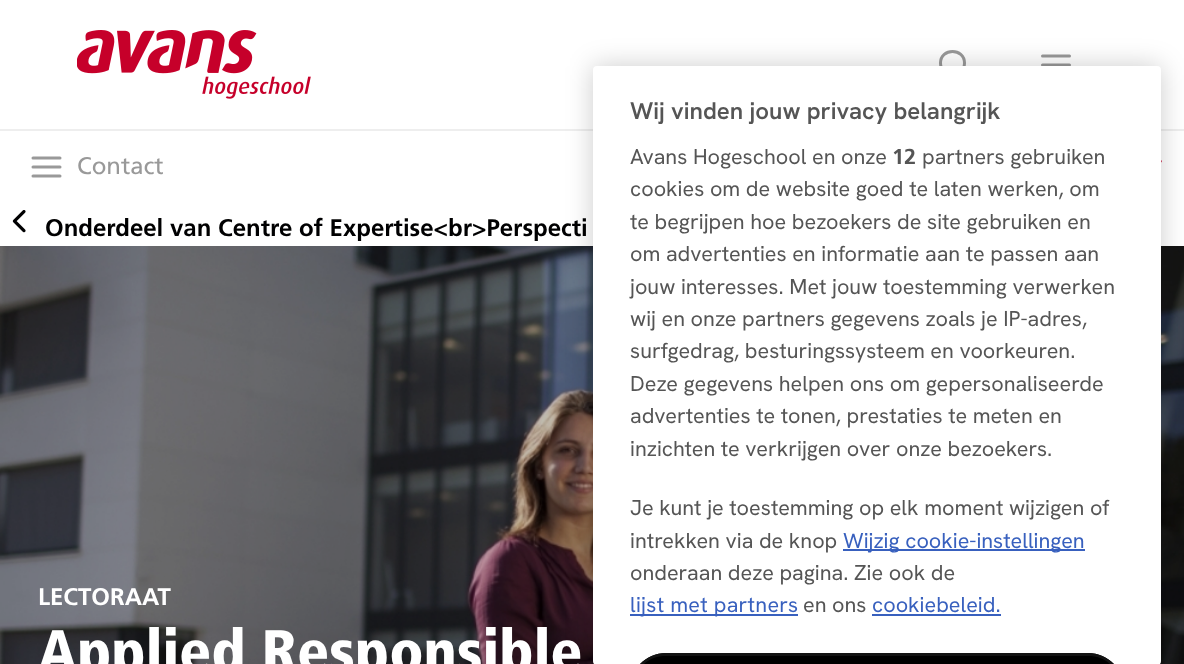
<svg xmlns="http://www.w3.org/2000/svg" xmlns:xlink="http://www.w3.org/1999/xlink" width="1184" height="664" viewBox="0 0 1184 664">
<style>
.cls-1{font:24px 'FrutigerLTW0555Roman';fill:#999999}
.cls-2{font:bold 24px 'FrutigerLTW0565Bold';fill:#000001}
.cls-3{font:bold 24px 'FrutigerLTW0565Bold';fill:#ffffff}
.cls-4{font:900 60px 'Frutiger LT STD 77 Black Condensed';fill:#ffffff}
.cls-5{font:600 24px Hanken Grotesk;fill:#555555}
.cls-6{font:21.6px Hanken Grotesk;fill:#555555}
.cls-7{font:bold 21.6px 'FrutigerLTW0565Bold';fill:#555555}
.cls-8{font:21.6px Hanken Grotesk;fill:#3860be}
.cls-9{font:21.6px Hanken Grotesk;letter-spacing:0.25px;fill:#3860be}
</style>
<rect width="100%" height="100%" fill="#ffffff"/>
<rect fill="#eeeeee" x="0" y="129" width="1184" height="2"/>
<image xlink:href="image0.png" x="77" y="30" width="234" height="69"/>
<path fill="none" stroke="#999999" stroke-width="3" stroke-linecap="round" stroke-linejoin="round" d="M964.5 63C964.5 78.5 940.5 78.5 940.5 63C940.5 47.5 964.5 47.5 964.5 63Z"/>
<path fill="none" stroke="#999999" stroke-width="3" stroke-linecap="round" stroke-linejoin="round" d="M1042.5 65H1069.5M1042.5 56H1069.5"/>
<path fill="none" stroke="#999999" stroke-width="3" stroke-linecap="round" stroke-linejoin="round" d="M33 167H60M33 158H60M33 176H60"/>
<image xlink:href="image1.png" x="1161" y="160" width="1" height="3"/>
<image xlink:href="image2.png" x="12" y="210" width="14" height="23"/>
<image xlink:href="image3.png" x="0" y="246" width="1184" height="418"/>
<rect fill="#000000" fill-opacity="0.2" filter="blur(13.5px)" x="593" y="66" width="568" height="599" rx="4"/>
<rect fill="#ffffff" x="593" y="66" width="568" height="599" rx="4"/>
<rect fill="#3860be" x="843" y="549" width="242" height="2"/>
<rect fill="#3860be" x="630" y="614" width="168" height="2"/>
<rect fill="#3860be" x="872" y="614" width="129" height="2"/>
<path fill="#000000" d="M666 653H1088C1108 653 1124 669 1124 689V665H630V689C630 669 646 653 666 653Z"/>
<path fill="#131313" d="M666 653C655 653 646 658 639 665H643C649 659 657 656 666 656H1088C1097 656 1105 659 1111 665H1115C1108 658 1099 653 1088 653Z"/>
<text class="cls-1" x="77" y="174">Contact</text>
<text class="cls-2" x="45" y="236">Onderdeel van Centre of Expertise&lt;br&gt;Perspecti</text>
<text class="cls-3" x="38" y="605">LECTORAAT</text>
<text class="cls-4" x="38" y="672">Applied Responsible</text>
<text class="cls-5" x="630" y="119">Wij vinden jouw privacy belangrijk</text>
<text class="cls-6" x="630" y="164">Avans Hogeschool en onze</text>
<text class="cls-7" x="892" y="164">12</text>
<text class="cls-6" x="922" y="164">partners gebruiken</text>
<text class="cls-6"><tspan x="630" y="196">cookies om de website goed te laten werken, om</tspan><tspan x="630" y="229">te begrijpen hoe bezoekers de site gebruiken en</tspan><tspan x="630" y="261">om advertenties en informatie aan te passen aan</tspan><tspan x="630" y="294">jouw interesses. Met jouw toestemming verwerken</tspan><tspan x="630" y="326">wij en onze partners gegevens zoals je IP-adres,</tspan><tspan x="630" y="358">surfgedrag, besturingssysteem en voorkeuren.</tspan><tspan x="630" y="391">Deze gegevens helpen ons om gepersonaliseerde</tspan><tspan x="630" y="423">advertenties te tonen, prestaties te meten en</tspan><tspan x="630" y="456">inzichten te verkrijgen over onze bezoekers.</tspan></text>
<text class="cls-6"><tspan x="630" y="515">Je kunt je toestemming op elk moment wijzigen of</tspan><tspan x="630" y="548">intrekken via de knop</tspan></text>
<text class="cls-8" x="843" y="548">Wijzig cookie-instellingen</text>
<text class="cls-6" x="630" y="580">onderaan deze pagina. Zie ook de</text>
<text class="cls-9" x="630" y="612">lijst met partners</text>
<text class="cls-6" x="803" y="612">en ons</text>
<text class="cls-8" x="872" y="612">cookiebeleid.</text>
</svg>
